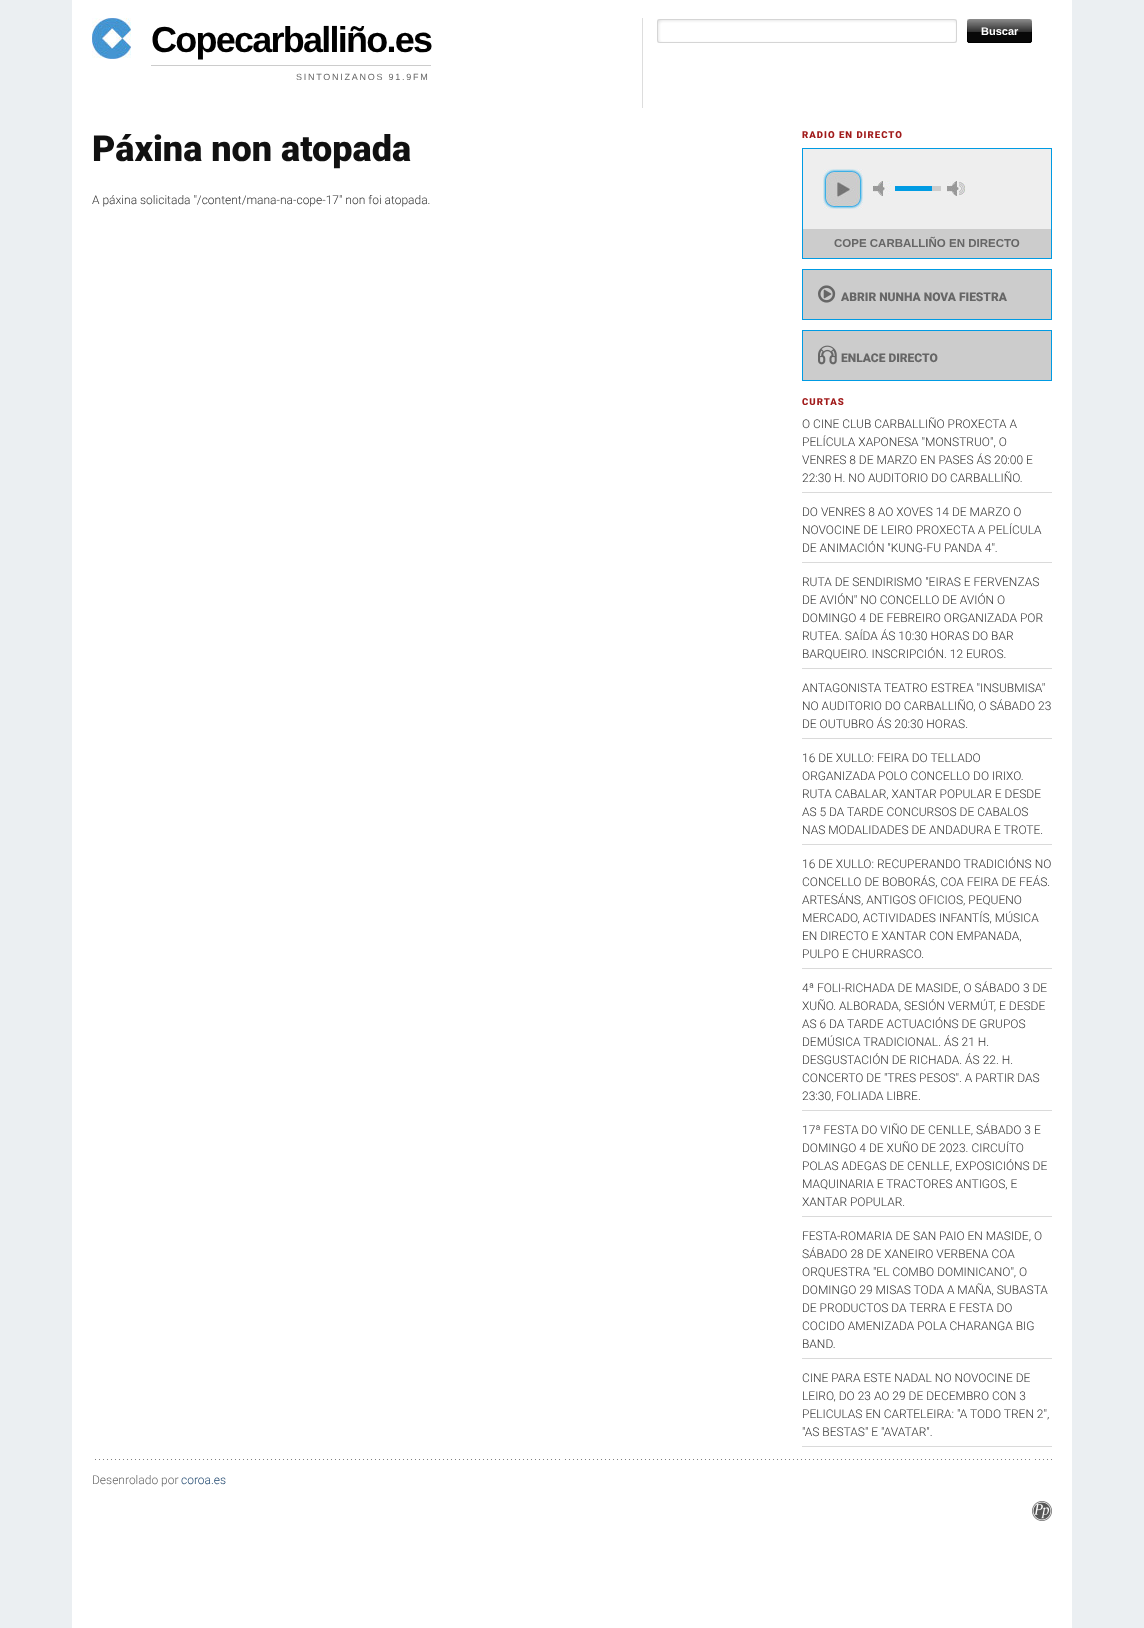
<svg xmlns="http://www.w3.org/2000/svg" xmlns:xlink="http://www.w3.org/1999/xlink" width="1144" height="1628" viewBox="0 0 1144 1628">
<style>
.cls-1{font:bold 36px Liberation Sans;letter-spacing:-1.75px;fill:#000000}
.cls-2{font:9px Liberation Sans;letter-spacing:1.75px;fill:#666666}
.cls-3{font:bold 11px Liberation Sans;fill:#ffffff}
.cls-4{font:900 36px Roboto;fill:#111111}
.cls-5{font:300 12px Roboto;fill:#333333}
.cls-6{font:900 9.6px Roboto;letter-spacing:1px;fill:#a11b1b}
.cls-7{font:bold 11.5px Liberation Sans;fill:#666666}
.cls-8{font:900 12px Roboto;fill:#666666}
.cls-9{font:300 12px Roboto;fill:#666666}
.cls-10{font:300 12px Roboto;fill:#224970}
</style>
<rect width="100%" height="100%" fill="#ebeff2"/>
<rect fill="#ffffff" x="72" y="0" width="1000" height="1628"/>
<image xlink:href="image0.png" x="92" y="18" width="39" height="41"/>
<rect fill="#cccccc" x="151" y="65" width="280" height="1"/>
<rect fill="#dddddd" x="642" y="18" width="1" height="90"/>
<image xlink:href="image1.png" x="657" y="19" width="300" height="24"/>
<image xlink:href="image2.png" x="967" y="19" width="65" height="24"/>
<rect fill="#eeeeee" x="803" y="149" width="248" height="80"/>
<rect fill="none" stroke="#009be3" x="802.5" y="148.5" width="249" height="110"/>
<image xlink:href="image3.png" x="823" y="169" width="40" height="40"/>
<image xlink:href="image4.png" x="873" y="181" width="18" height="15"/>
<rect fill="#cccccc" x="932" y="186" width="9" height="5"/>
<image xlink:href="image5.png" x="895" y="186" width="37" height="5"/>
<image xlink:href="image6.png" x="947" y="181" width="18" height="15"/>
<rect fill="#cccccc" x="803" y="229" width="248" height="29"/>
<rect fill="#cccccc" stroke="#009be3" x="802.5" y="269.5" width="249" height="50"/>
<image xlink:href="image7.png" x="818" y="285" width="18" height="18"/>
<rect fill="#cccccc" stroke="#009be3" x="802.5" y="330.5" width="249" height="50"/>
<image xlink:href="image8.png" x="818" y="345" width="19" height="20"/>
<rect fill="#dadada" x="802" y="492" width="250" height="1"/>
<rect fill="#dadada" x="802" y="562" width="250" height="1"/>
<rect fill="#dadada" x="802" y="668" width="250" height="1"/>
<rect fill="#dadada" x="802" y="738" width="250" height="1"/>
<rect fill="#dadada" x="802" y="844" width="250" height="1"/>
<rect fill="#dadada" x="802" y="968" width="250" height="1"/>
<rect fill="#dadada" x="802" y="1110" width="250" height="1"/>
<rect fill="#dadada" x="802" y="1216" width="250" height="1"/>
<rect fill="#dadada" x="802" y="1358" width="250" height="1"/>
<rect fill="#dadada" x="802" y="1446" width="250" height="1"/>
<image xlink:href="image9.png" x="95" y="1459" width="957" height="1"/>
<image xlink:href="image10.png" x="1032" y="1501" width="20" height="20"/>
<text class="cls-1" x="151" y="52">Copecarballiño.es</text>
<text class="cls-2" x="296" y="80">SINTONIZANOS 91.9FM</text>
<text class="cls-3" x="981" y="35">Buscar</text>
<text class="cls-4" x="92" y="161">Páxina non atopada</text>
<text class="cls-5" x="92" y="204">A páxina solicitada "/content/mana-na-cope-17" non foi atopada.</text>
<text class="cls-6" x="802" y="138">RADIO EN DIRECTO</text>
<text class="cls-7" x="834" y="247">COPE CARBALLIÑO EN DIRECTO</text>
<text class="cls-8" x="841" y="301">ABRIR NUNHA NOVA FIESTRA</text>
<text class="cls-8" x="841" y="362">ENLACE DIRECTO</text>
<text class="cls-6" x="802" y="405">CURTAS</text>
<text class="cls-5"><tspan x="802" y="428">O CINE CLUB CARBALLIÑO PROXECTA A</tspan><tspan x="802" y="446">PELÍCULA XAPONESA "MONSTRUO", O</tspan><tspan x="802" y="464">VENRES 8 DE MARZO EN PASES ÁS 20:00 E</tspan><tspan x="802" y="482">22:30 H. NO AUDITORIO DO CARBALLIÑO.</tspan></text>
<text class="cls-5"><tspan x="802" y="516">DO VENRES 8 AO XOVES 14 DE MARZO O</tspan><tspan x="802" y="534">NOVOCINE DE LEIRO PROXECTA A PELÍCULA</tspan><tspan x="802" y="552">DE ANIMACIÓN "KUNG-FU PANDA 4".</tspan></text>
<text class="cls-5"><tspan x="802" y="586">RUTA DE SENDIRISMO "EIRAS E FERVENZAS</tspan><tspan x="802" y="604">DE AVIÓN" NO CONCELLO DE AVIÓN O</tspan><tspan x="802" y="622">DOMINGO 4 DE FEBREIRO ORGANIZADA POR</tspan><tspan x="802" y="640">RUTEA. SAÍDA ÁS 10:30 HORAS DO BAR</tspan><tspan x="802" y="658">BARQUEIRO. INSCRIPCIÓN. 12 EUROS.</tspan></text>
<text class="cls-5"><tspan x="802" y="692">ANTAGONISTA TEATRO ESTREA "INSUBMISA"</tspan><tspan x="802" y="710">NO AUDITORIO DO CARBALLIÑO, O SÁBADO 23</tspan><tspan x="802" y="728">DE OUTUBRO ÁS 20:30 HORAS.</tspan></text>
<text class="cls-5"><tspan x="802" y="762">16 DE XULLO: FEIRA DO TELLADO</tspan><tspan x="802" y="780">ORGANIZADA POLO CONCELLO DO IRIXO.</tspan><tspan x="802" y="798">RUTA CABALAR, XANTAR POPULAR E DESDE</tspan><tspan x="802" y="816">AS 5 DA TARDE CONCURSOS DE CABALOS</tspan><tspan x="802" y="834">NAS MODALIDADES DE ANDADURA E TROTE.</tspan></text>
<text class="cls-5"><tspan x="802" y="868">16 DE XULLO: RECUPERANDO TRADICIÓNS NO</tspan><tspan x="802" y="886">CONCELLO DE BOBORÁS, COA FEIRA DE FEÁS.</tspan><tspan x="802" y="904">ARTESÁNS, ANTIGOS OFICIOS, PEQUENO</tspan><tspan x="802" y="922">MERCADO, ACTIVIDADES INFANTÍS, MÚSICA</tspan><tspan x="802" y="940">EN DIRECTO E XANTAR CON EMPANADA,</tspan><tspan x="802" y="958">PULPO E CHURRASCO.</tspan></text>
<text class="cls-5"><tspan x="802" y="992">4ª FOLI-RICHADA DE MASIDE, O SÁBADO 3 DE</tspan><tspan x="802" y="1010">XUÑO. ALBORADA, SESIÓN VERMÚT, E DESDE</tspan><tspan x="802" y="1028">AS 6 DA TARDE ACTUACIÓNS DE GRUPOS</tspan><tspan x="802" y="1046">DEMÚSICA TRADICIONAL. ÁS 21 H.</tspan><tspan x="802" y="1064">DESGUSTACIÓN DE RICHADA. ÁS 22. H.</tspan><tspan x="802" y="1082">CONCERTO DE "TRES PESOS". A PARTIR DAS</tspan><tspan x="802" y="1100">23:30, FOLIADA LIBRE.</tspan></text>
<text class="cls-5"><tspan x="802" y="1134">17ª FESTA DO VIÑO DE CENLLE, SÁBADO 3 E</tspan><tspan x="802" y="1152">DOMINGO 4 DE XUÑO DE 2023. CIRCUÍTO</tspan><tspan x="802" y="1170">POLAS ADEGAS DE CENLLE, EXPOSICIÓNS DE</tspan><tspan x="802" y="1188">MAQUINARIA E TRACTORES ANTIGOS, E</tspan><tspan x="802" y="1206">XANTAR POPULAR.</tspan></text>
<text class="cls-5"><tspan x="802" y="1240">FESTA-ROMARIA DE SAN PAIO EN MASIDE, O</tspan><tspan x="802" y="1258">SÁBADO 28 DE XANEIRO VERBENA COA</tspan><tspan x="802" y="1276">ORQUESTRA "EL COMBO DOMINICANO", O</tspan><tspan x="802" y="1294">DOMINGO 29 MISAS TODA A MAÑA, SUBASTA</tspan><tspan x="802" y="1312">DE PRODUCTOS DA TERRA E FESTA DO</tspan><tspan x="802" y="1330">COCIDO AMENIZADA POLA CHARANGA BIG</tspan><tspan x="802" y="1348">BAND.</tspan></text>
<text class="cls-5"><tspan x="802" y="1382">CINE PARA ESTE NADAL NO NOVOCINE DE</tspan><tspan x="802" y="1400">LEIRO, DO 23 AO 29 DE DECEMBRO CON 3</tspan><tspan x="802" y="1418">PELICULAS EN CARTELEIRA: "A TODO TREN 2",</tspan><tspan x="802" y="1436">"AS BESTAS" E "AVATAR".</tspan></text>
<text class="cls-9" x="92" y="1484">Desenrolado por</text>
<text class="cls-10" x="181" y="1484">coroa.es</text>
</svg>
